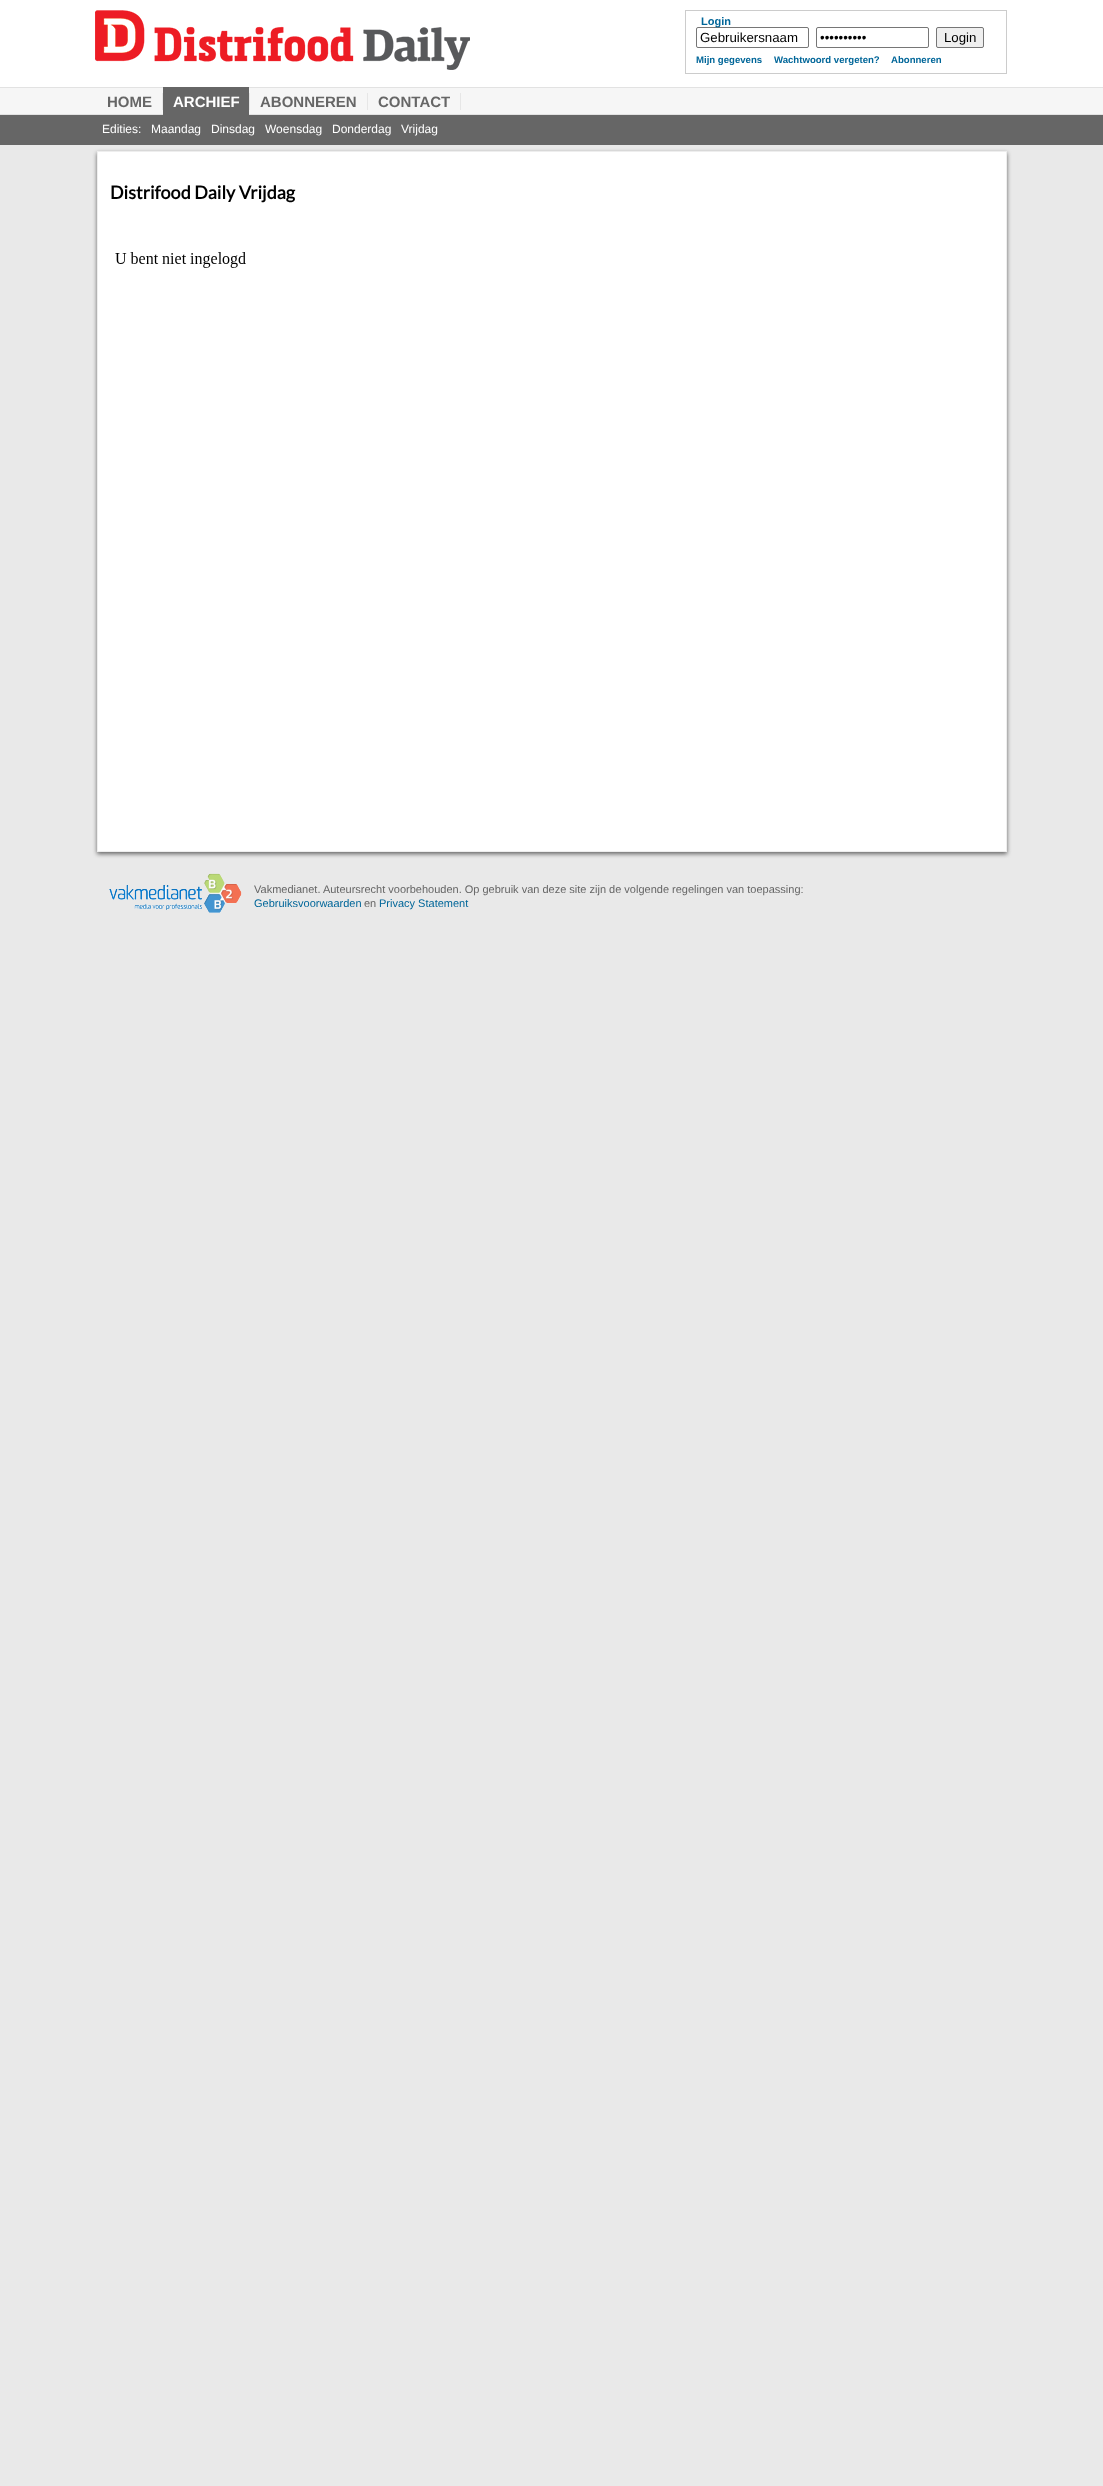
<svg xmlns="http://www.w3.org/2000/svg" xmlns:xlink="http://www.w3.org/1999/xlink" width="1103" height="2486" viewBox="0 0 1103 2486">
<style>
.cls-1{font:bold 11px Liberation Sans;fill:#006699}
.cls-2{font:13.25px Liberation Sans;fill:#000000}
.cls-3{font:bold 9.6px Liberation Sans;fill:#006699}
.cls-4{font:bold 15px Liberation Sans;fill:#666666}
.cls-5{font:12px Liberation Sans;fill:#ffffff}
.cls-6{font:bold 15px Liberation Sans;fill:#ffffff}
.cls-7{font:bold 18px Lato;fill:#000000}
.cls-8{font:11px Liberation Sans;fill:#666666}
.cls-9{font:11px Liberation Sans;fill:#006699}
</style>
<rect width="100%" height="100%" fill="#e9e9e9"/>
<image xlink:href="image0.png" x="0" y="0" width="1103" height="145"/>
<image xlink:href="image1.png" x="95" y="10" width="375" height="60"/>
<rect fill="none" stroke="#cccccc" x="685.5" y="10.5" width="321" height="63"/>
<rect fill="none" stroke="#767676" x="696.5" y="27.5" width="112" height="20" rx="1.5"/>
<rect fill="none" stroke="#767676" x="816.5" y="27.5" width="112" height="20" rx="1.5"/>
<rect fill="#efefef" stroke="#767676" x="936.5" y="27.5" width="47" height="20" rx="1.5"/>
<rect fill="#e6e6e6" x="162" y="93" width="1" height="17"/>
<rect fill="#e6e6e6" x="249" y="93" width="1" height="17"/>
<rect fill="#666666" x="163" y="87" width="86" height="28"/>
<rect fill="#e6e6e6" x="367" y="93" width="1" height="17"/>
<rect fill="#e6e6e6" x="460" y="93" width="1" height="17"/>
<rect fill="#666666" filter="blur(2px)" x="97" y="153" width="910" height="701"/>
<rect fill="#ffffff" stroke="#eeeeee" x="97.5" y="151.5" width="909" height="700"/>
<image xlink:href="image2.png" x="115" y="252" width="131" height="16"/>
<image xlink:href="image3.png" x="109" y="873" width="133" height="40"/>
<text class="cls-1" x="701" y="25">Login</text>
<text class="cls-2" x="700" y="42">Gebruikersnaam</text>
<text class="cls-2" x="820" y="42">••••••••••</text>
<text class="cls-2" x="944" y="42">Login</text>
<text class="cls-3" x="696" y="63">Mijn gegevens</text>
<text class="cls-3" x="774" y="63">Wachtwoord vergeten?</text>
<text class="cls-3" x="891" y="63">Abonneren</text>
<text class="cls-4" x="107" y="107">HOME</text>
<text class="cls-5" x="102" y="133">Edities:</text>
<text class="cls-5" x="151" y="133">Maandag</text>
<text class="cls-5" x="211" y="133">Dinsdag</text>
<text class="cls-5" x="265" y="133">Woensdag</text>
<text class="cls-5" x="332" y="133">Donderdag</text>
<text class="cls-5" x="401" y="133">Vrijdag</text>
<text class="cls-6" x="173" y="107">ARCHIEF</text>
<text class="cls-4" x="260" y="107">ABONNEREN</text>
<text class="cls-4" x="378" y="107">CONTACT</text>
<text class="cls-7" x="110" y="199">Distrifood Daily Vrijdag</text>
<text class="cls-8" x="254" y="893">Vakmedianet. Auteursrecht voorbehouden. Op gebruik van deze site zijn de volgende regelingen van toepassing:</text>
<text class="cls-9" x="254" y="907">Gebruiksvoorwaarden</text>
<text class="cls-8" x="364" y="907">en</text>
<text class="cls-9" x="379" y="907">Privacy Statement</text>
</svg>
